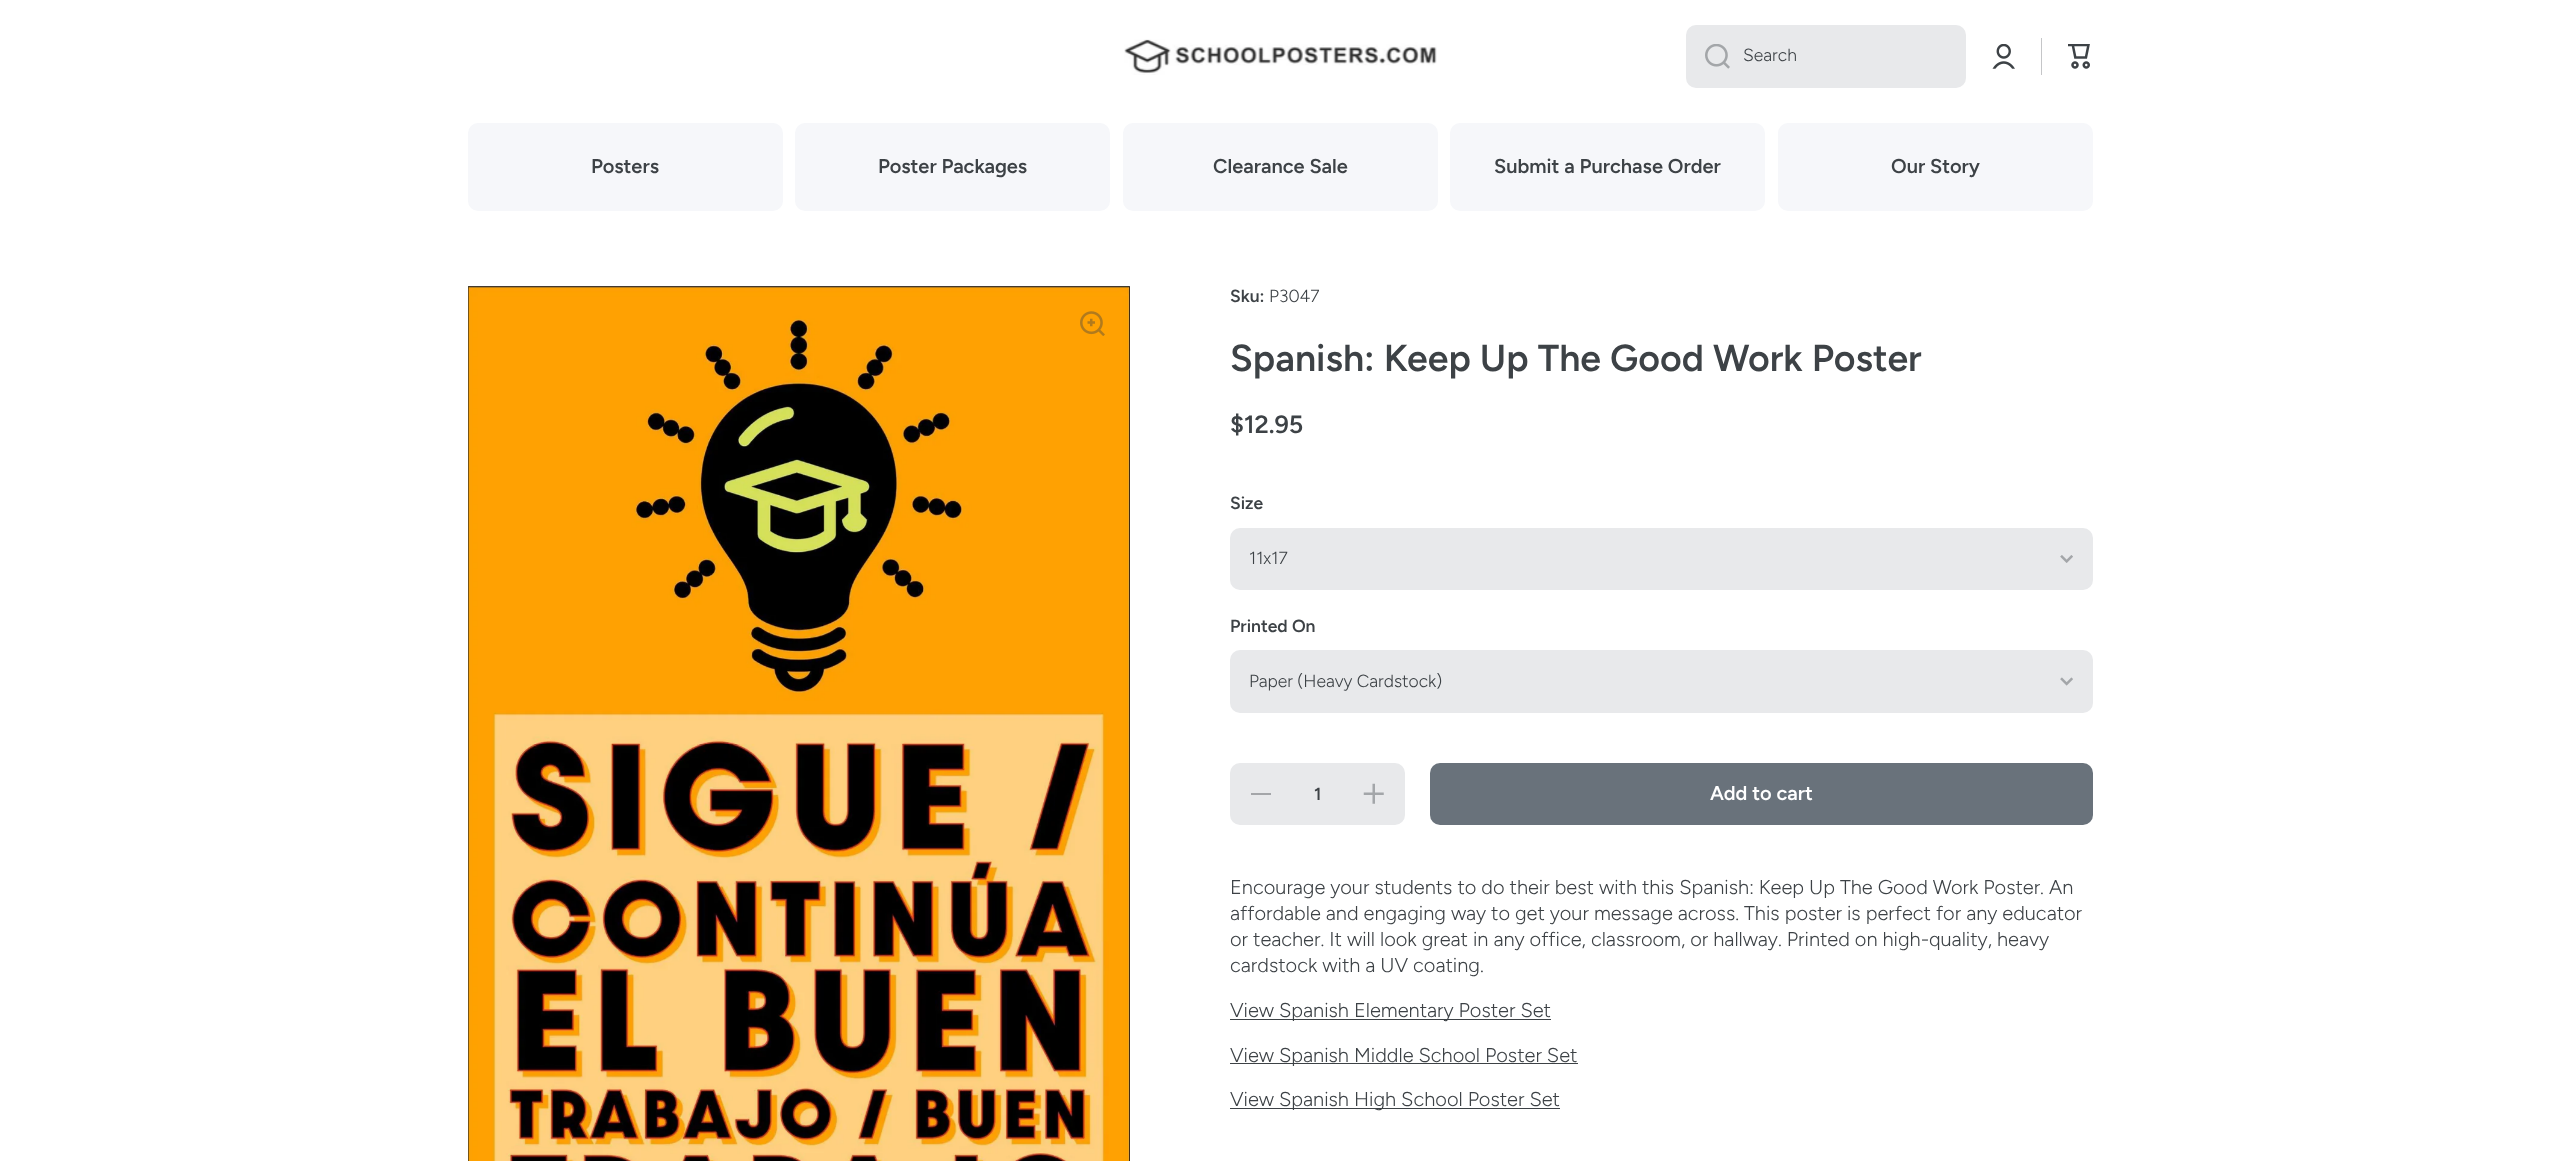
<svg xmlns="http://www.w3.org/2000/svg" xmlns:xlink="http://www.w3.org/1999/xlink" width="2559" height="1161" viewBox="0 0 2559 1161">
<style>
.cls-1{font:300 17.5px Figtree;fill:#3d4246}
.cls-2{font:600 20px Figtree;fill:#3d4246}
.cls-3{font:600 17.5px Figtree;fill:#3d4246}
.cls-4{font:600 37.5px Figtree;fill:#3d4246}
.cls-5{font:600 25px Figtree;fill:#3d4246}
.cls-6{font:600 20px Figtree;fill:#ffffff}
.cls-7{font:300 20px Figtree;fill:#3d4246}
</style>
<rect width="100%" height="100%" fill="#ffffff"/>
<image xlink:href="image0.png" x="1124" y="39" width="313" height="36"/>
<rect fill="#e8e9eb" x="1686" y="25" width="280" height="63" rx="10"/>
<image xlink:href="image1.png" x="1705" y="44" width="25" height="25"/>
<image xlink:href="image2.png" x="1992" y="44" width="23" height="25"/>
<rect fill="#c5c6c8" x="2041" y="38" width="1" height="37"/>
<image xlink:href="image3.png" x="2068" y="44" width="22" height="25"/>
<rect fill="#f6f7fa" x="468" y="123" width="315" height="88" rx="10"/>
<rect fill="#f6f7fa" x="795" y="123" width="315" height="88" rx="10"/>
<rect fill="#f6f7fa" x="1123" y="123" width="315" height="88" rx="10"/>
<rect fill="#f6f7fa" x="1450" y="123" width="315" height="88" rx="10"/>
<rect fill="#f6f7fa" x="1778" y="123" width="315" height="88" rx="10"/>
<image xlink:href="image4.png" x="468" y="286" width="662" height="875"/>
<image xlink:href="image5.png" x="1080" y="311" width="25" height="25"/>
<rect fill="#e8e9eb" x="1230" y="528" width="863" height="62" rx="10"/>
<image xlink:href="image6.png" x="2060" y="555" width="13" height="8"/>
<rect fill="#e8e9eb" x="1230" y="650" width="863" height="63" rx="10"/>
<image xlink:href="image7.png" x="2060" y="677" width="13" height="9"/>
<rect fill="#e8e9eb" x="1230" y="763" width="175" height="62" rx="10"/>
<rect fill="#a4a6a9" x="1251" y="793" width="20" height="2"/>
<image xlink:href="image8.png" x="1363" y="783" width="21" height="21"/>
<rect fill="#69727b" x="1430" y="763" width="663" height="62" rx="10"/>
<rect fill="#3d4246" x="1230" y="1019" width="321" height="1"/>
<rect fill="#3d4246" x="1230" y="1063" width="348" height="1"/>
<rect fill="#3d4246" x="1230" y="1108" width="330" height="1"/>
<text class="cls-1" x="1743" y="61">Search</text>
<text class="cls-2" x="591" y="173">Posters</text>
<text class="cls-2" x="878" y="173">Poster Packages</text>
<text class="cls-2" x="1213" y="173">Clearance Sale</text>
<text class="cls-2" x="1494" y="173">Submit a Purchase Order</text>
<text class="cls-2" x="1891" y="173">Our Story</text>
<text class="cls-3" x="1230" y="302">Sku:</text>
<text class="cls-1" x="1269" y="302">P3047</text>
<text class="cls-4" x="1230" y="371">Spanish: Keep Up The Good Work Poster</text>
<text class="cls-5" x="1230" y="433">$12.95</text>
<text class="cls-3" x="1230" y="509">Size</text>
<text class="cls-1" x="1249" y="564">11x17</text>
<text class="cls-3" x="1230" y="632">Printed On</text>
<text class="cls-1" x="1249" y="687">Paper (Heavy Cardstock)</text>
<text class="cls-3" x="1314" y="800">1</text>
<text class="cls-6" x="1710" y="800">Add to cart</text>
<text class="cls-7"><tspan x="1230" y="894">Encourage your students to do their best with this Spanish: Keep Up The Good Work Poster. An</tspan><tspan x="1230" y="920">affordable and engaging way to get your message across. This poster is perfect for any educator</tspan><tspan x="1230" y="946">or teacher. It will look great in any office, classroom, or hallway. Printed on high-quality, heavy</tspan><tspan x="1230" y="972">cardstock with a UV coating.</tspan></text>
<text class="cls-7" x="1230" y="1017">View Spanish Elementary Poster Set</text>
<text class="cls-7" x="1230" y="1062">View Spanish Middle School Poster Set</text>
<text class="cls-7" x="1230" y="1106">View Spanish High School Poster Set</text>
</svg>
